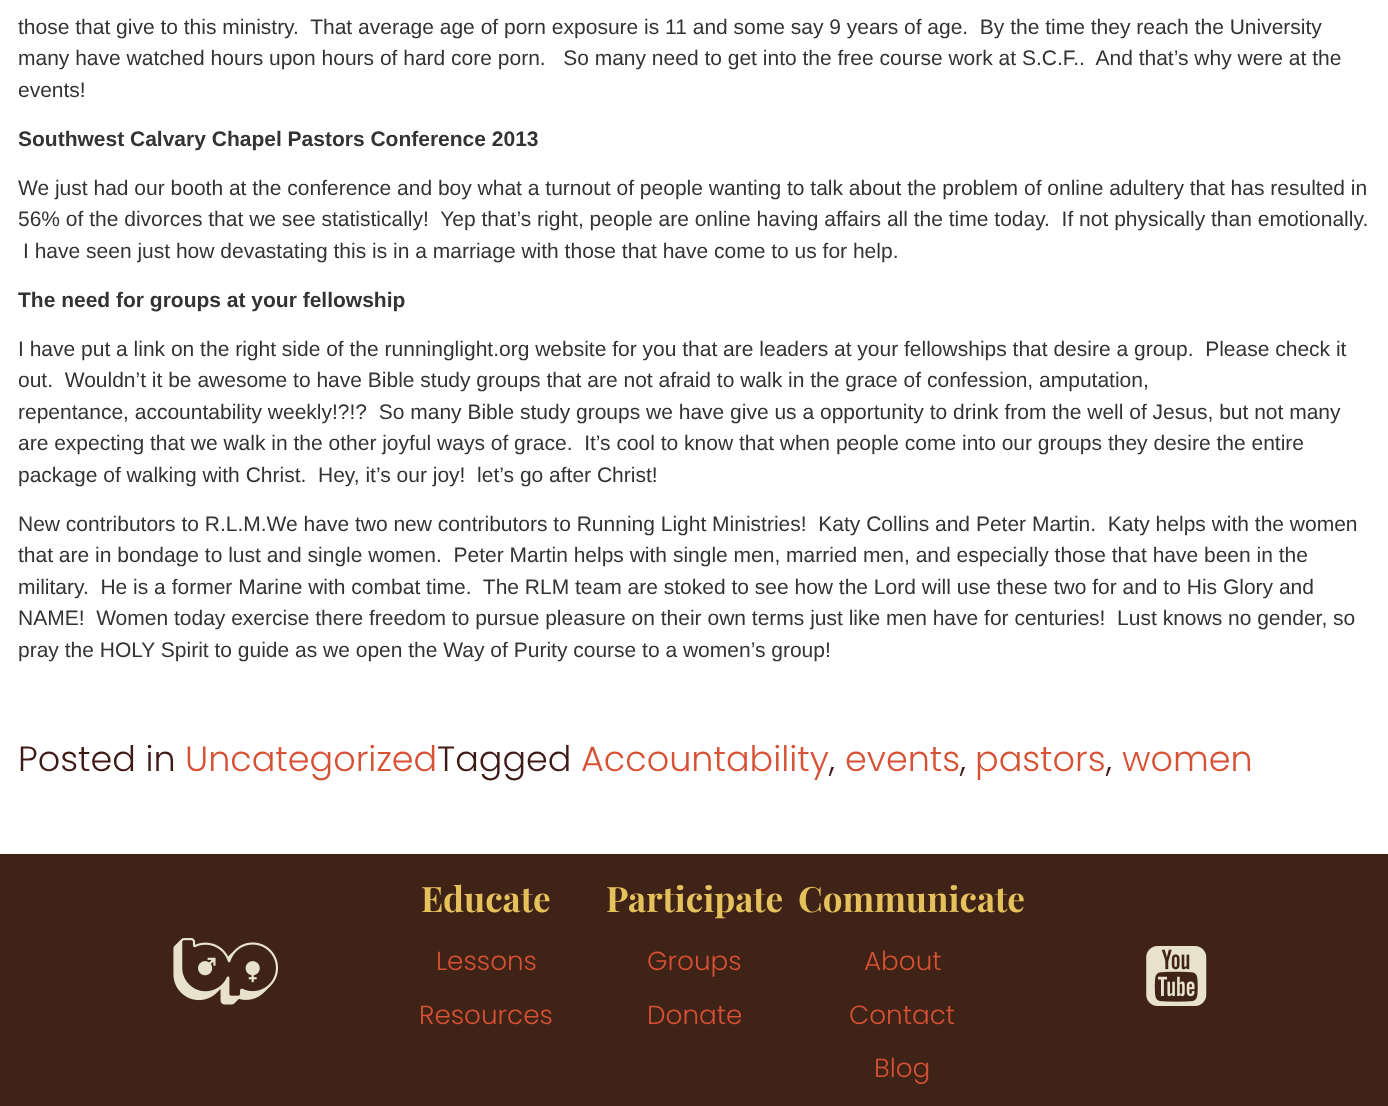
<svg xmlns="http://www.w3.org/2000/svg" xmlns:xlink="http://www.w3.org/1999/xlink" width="1388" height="1106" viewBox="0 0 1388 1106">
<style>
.cls-1{font:21px Liberation Sans;fill:#333333}
.cls-2{font:bold 21px Liberation Sans;fill:#333333}
.cls-3{font:300 35px Poppins;fill:#3f1916}
.cls-4{font:300 35px Poppins;fill:#d75135}
.cls-5{font:bold 35px Playfair Display;fill:#e5c15c}
.cls-6{font:300 26.25px Poppins;fill:#d75135}
</style>
<rect width="100%" height="100%" fill="#ffffff"/>
<rect fill="#3f2316" x="0" y="854" width="1388" height="252"/>
<image xlink:href="image0.png" x="173" y="938" width="105" height="67"/>
<image xlink:href="image1.png" x="1146" y="946" width="61" height="60"/>
<text class="cls-1" xml:space="preserve"><tspan x="18" y="34">those that give to this ministry.  That average age of porn exposure is 11 and some say 9 years of age.  By the time they reach the University</tspan><tspan x="18" y="65">many have watched hours upon hours of hard core porn.   So many need to get into the free course work at S.C.F..  And that’s why were at the</tspan><tspan x="18" y="97">events!</tspan></text>
<text class="cls-2" x="18" y="146">Southwest Calvary Chapel Pastors Conference 2013</text>
<text class="cls-1" xml:space="preserve"><tspan x="18" y="195">We just had our booth at the conference and boy what a turnout of people wanting to talk about the problem of online adultery that has resulted in</tspan><tspan x="18" y="226">56% of the divorces that we see statistically!  Yep that’s right, people are online having affairs all the time today.  If not physically than emotionally.</tspan></text>
<text class="cls-1" x="23" y="258">I have seen just how devastating this is in a marriage with those that have come to us for help.</text>
<text class="cls-2" x="18" y="307">The need for groups at your fellowship</text>
<text class="cls-1" xml:space="preserve"><tspan x="18" y="356">I have put a link on the right side of the runninglight.org website for you that are leaders at your fellowships that desire a group.  Please check it</tspan><tspan x="18" y="387">out.  Wouldn’t it be awesome to have Bible study groups that are not afraid to walk in the grace of confession, amputation,</tspan><tspan x="18" y="419">repentance, accountability weekly!?!?  So many Bible study groups we have give us a opportunity to drink from the well of Jesus, but not many</tspan><tspan x="18" y="450">are expecting that we walk in the other joyful ways of grace.  It’s cool to know that when people come into our groups they desire the entire</tspan><tspan x="18" y="482">package of walking with Christ.  Hey, it’s our joy!  let’s go after Christ!</tspan></text>
<text class="cls-1" xml:space="preserve"><tspan x="18" y="531">New contributors to R.L.M.We have two new contributors to Running Light Ministries!  Katy Collins and Peter Martin.  Katy helps with the women</tspan><tspan x="18" y="562">that are in bondage to lust and single women.  Peter Martin helps with single men, married men, and especially those that have been in the</tspan><tspan x="18" y="594">military.  He is a former Marine with combat time.  The RLM team are stoked to see how the Lord will use these two for and to His Glory and</tspan><tspan x="18" y="625">NAME!  Women today exercise there freedom to pursue pleasure on their own terms just like men have for centuries!  Lust knows no gender, so</tspan><tspan x="18" y="657">pray the HOLY Spirit to guide as we open the Way of Purity course to a women’s group!</tspan></text>
<text class="cls-3" x="18" y="771">Posted in</text>
<text class="cls-4" x="185" y="771">Uncategorized</text>
<text class="cls-3" x="437" y="771">Tagged</text>
<text class="cls-4" x="581" y="771">Accountability</text>
<text class="cls-3" x="829" y="771">,</text>
<text class="cls-4" x="845" y="771">events</text>
<text class="cls-3" x="960" y="771">,</text>
<text class="cls-4" x="975" y="771">pastors</text>
<text class="cls-3" x="1106" y="771">,</text>
<text class="cls-4" x="1122" y="771">women</text>
<text class="cls-5" x="421" y="912">Educate</text>
<text class="cls-6" x="436" y="970">Lessons</text>
<text class="cls-6" x="419" y="1024">Resources</text>
<text class="cls-5" x="606" y="912">Participate</text>
<text class="cls-6" x="647" y="970">Groups</text>
<text class="cls-6" x="647" y="1024">Donate</text>
<text class="cls-5" x="798" y="912">Communicate</text>
<text class="cls-6" x="864" y="970">About</text>
<text class="cls-6" x="849" y="1024">Contact</text>
<text class="cls-6" x="874" y="1077">Blog</text>
</svg>
